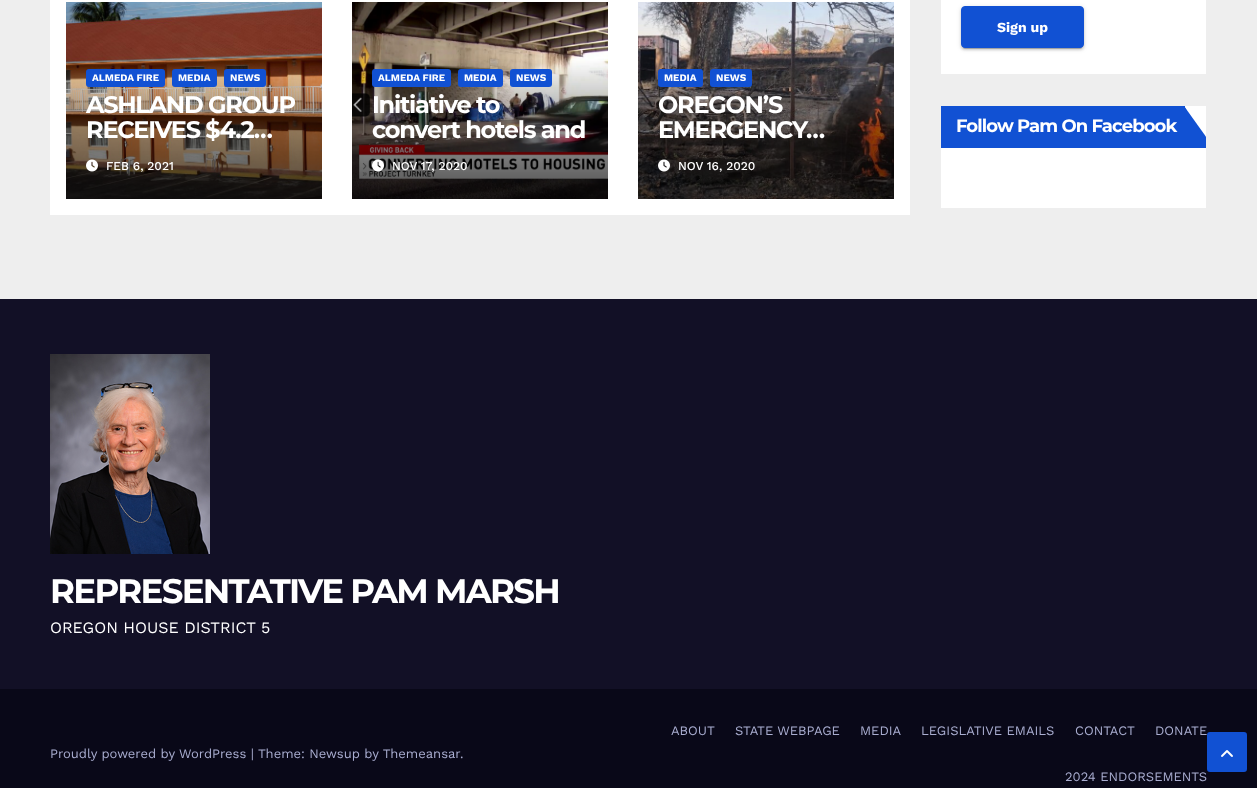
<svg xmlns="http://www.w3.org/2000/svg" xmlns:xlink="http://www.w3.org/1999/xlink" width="1257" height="788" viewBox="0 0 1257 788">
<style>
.cls-1{font:bold 10px Work Sans;fill:#ffffff}
.cls-2{font:bold 24px Montserrat;letter-spacing:-1.25px;fill:#ffffff}
.cls-3{font:500 12px Work Sans;fill:#ffffff}
.cls-4{font:bold 14px Work Sans;fill:#ffffff}
.cls-5{font:bold 18px Montserrat;letter-spacing:-0.9px;fill:#ffffff}
.cls-6{font:bold 34px Montserrat;letter-spacing:-1.7px;fill:#ffffff}
.cls-7{font:16px Work Sans;fill:#ffffff}
.cls-8{font:13px Work Sans;fill:#aaaed1}
</style>
<defs>
<clipPath id="clip1"><rect x="941" y="106" width="265" height="102"/></clipPath>
</defs>
<rect width="100%" height="100%" fill="#eeeeee"/>
<rect fill="#ffffff" x="50" y="0" width="860" height="215"/>
<image xlink:href="image0.png" x="66" y="2" width="256" height="197"/>
<rect fill="#1151d3" x="86" y="69" width="79" height="18" rx="3"/>
<rect fill="#1151d3" x="172" y="69" width="45" height="18" rx="3"/>
<rect fill="#1151d3" x="224" y="69" width="42" height="18" rx="3"/>
<image xlink:href="image1.png" x="86" y="159" width="12" height="13"/>
<image xlink:href="image2.png" x="352" y="2" width="256" height="197"/>
<rect fill="#1151d3" x="372" y="69" width="79" height="18" rx="3"/>
<rect fill="#1151d3" x="458" y="69" width="45" height="18" rx="3"/>
<rect fill="#1151d3" x="510" y="69" width="42" height="18" rx="3"/>
<image xlink:href="image3.png" x="372" y="159" width="12" height="13"/>
<image xlink:href="image4.png" x="638" y="2" width="256" height="197"/>
<rect fill="#1151d3" x="658" y="69" width="45" height="18" rx="3"/>
<rect fill="#1151d3" x="710" y="69" width="42" height="18" rx="3"/>
<image xlink:href="image5.png" x="658" y="159" width="12" height="13"/>
<rect fill="#ffffff" x="941" y="0" width="265" height="74"/>
<rect fill="#000000" fill-opacity="0.12" filter="blur(2.5px)" x="961" y="7" width="123" height="42" rx="4"/>
<rect fill="#000000" fill-opacity="0.2" filter="blur(0.5px)" x="963" y="11" width="119" height="38" rx="2"/>
<rect fill="#000000" fill-opacity="0.14" filter="blur(1px)" x="961" y="8" width="123" height="42" rx="4"/>
<rect fill="#1151d3" stroke="#1151d3" x="961.5" y="6.5" width="122" height="41" rx="3.5"/>
<rect fill="#ffffff" x="941" y="106" width="265" height="102"/>
<rect fill="#1151d3" x="941" y="146" width="243" height="2"/>
<rect fill="#1151d3" x="941" y="106" width="244" height="40"/>
<g clip-path="url(#clip1)">
<path fill="#1151d3" d="M1184 106V148H1214Z"/>
</g>
<path fill="#1151d3" d="M1184 106V148L1187 145V111Z"/>
<rect fill="#121026" x="0" y="299" width="1257" height="390"/>
<image xlink:href="image6.png" x="50" y="354" width="160" height="200"/>
<rect fill="#090818" x="0" y="689" width="1257" height="99"/>
<rect fill="#1151d3" stroke="#1151d3" stroke-width="2" x="1208" y="733" width="38" height="38" rx="2"/>
<image xlink:href="image7.png" x="1221" y="750" width="12" height="7"/>
<text class="cls-1" x="92" y="81">ALMEDA FIRE</text>
<text class="cls-1" x="178" y="81">MEDIA</text>
<text class="cls-1" x="230" y="81">NEWS</text>
<text class="cls-2"><tspan x="86" y="113">ASHLAND GROUP</tspan><tspan x="86" y="138">RECEIVES $4.2…</tspan></text>
<text class="cls-3" x="106" y="170">FEB 6, 2021</text>
<text class="cls-1" x="378" y="81">ALMEDA FIRE</text>
<text class="cls-1" x="464" y="81">MEDIA</text>
<text class="cls-1" x="516" y="81">NEWS</text>
<text class="cls-2"><tspan x="372" y="113">Initiative to</tspan><tspan x="372" y="138">convert hotels and</tspan></text>
<text class="cls-3" x="392" y="170">NOV 17, 2020</text>
<text class="cls-1" x="664" y="81">MEDIA</text>
<text class="cls-1" x="716" y="81">NEWS</text>
<text class="cls-2"><tspan x="658" y="113">OREGON’S</tspan><tspan x="658" y="138">EMERGENCY…</tspan></text>
<text class="cls-3" x="678" y="170">NOV 16, 2020</text>
<text class="cls-4" x="997" y="32">Sign up</text>
<text class="cls-5" x="956" y="132">Follow Pam On Facebook</text>
<text class="cls-6" x="50" y="603">REPRESENTATIVE PAM MARSH</text>
<text class="cls-7" x="50" y="633">OREGON HOUSE DISTRICT 5</text>
<text class="cls-8" x="50" y="758">Proudly powered by WordPress |</text>
<text class="cls-8" x="258" y="758">Theme: Newsup by Themeansar</text>
<text class="cls-8" x="460" y="758">.</text>
<text class="cls-8" x="671" y="735">ABOUT</text>
<text class="cls-8" x="735" y="735">STATE WEBPAGE</text>
<text class="cls-8" x="860" y="735">MEDIA</text>
<text class="cls-8" x="921" y="735">LEGISLATIVE EMAILS</text>
<text class="cls-8" x="1075" y="735">CONTACT</text>
<text class="cls-8" x="1155" y="735">DONATE</text>
<text class="cls-8" x="1065" y="781">2024 ENDORSEMENTS</text>
</svg>
